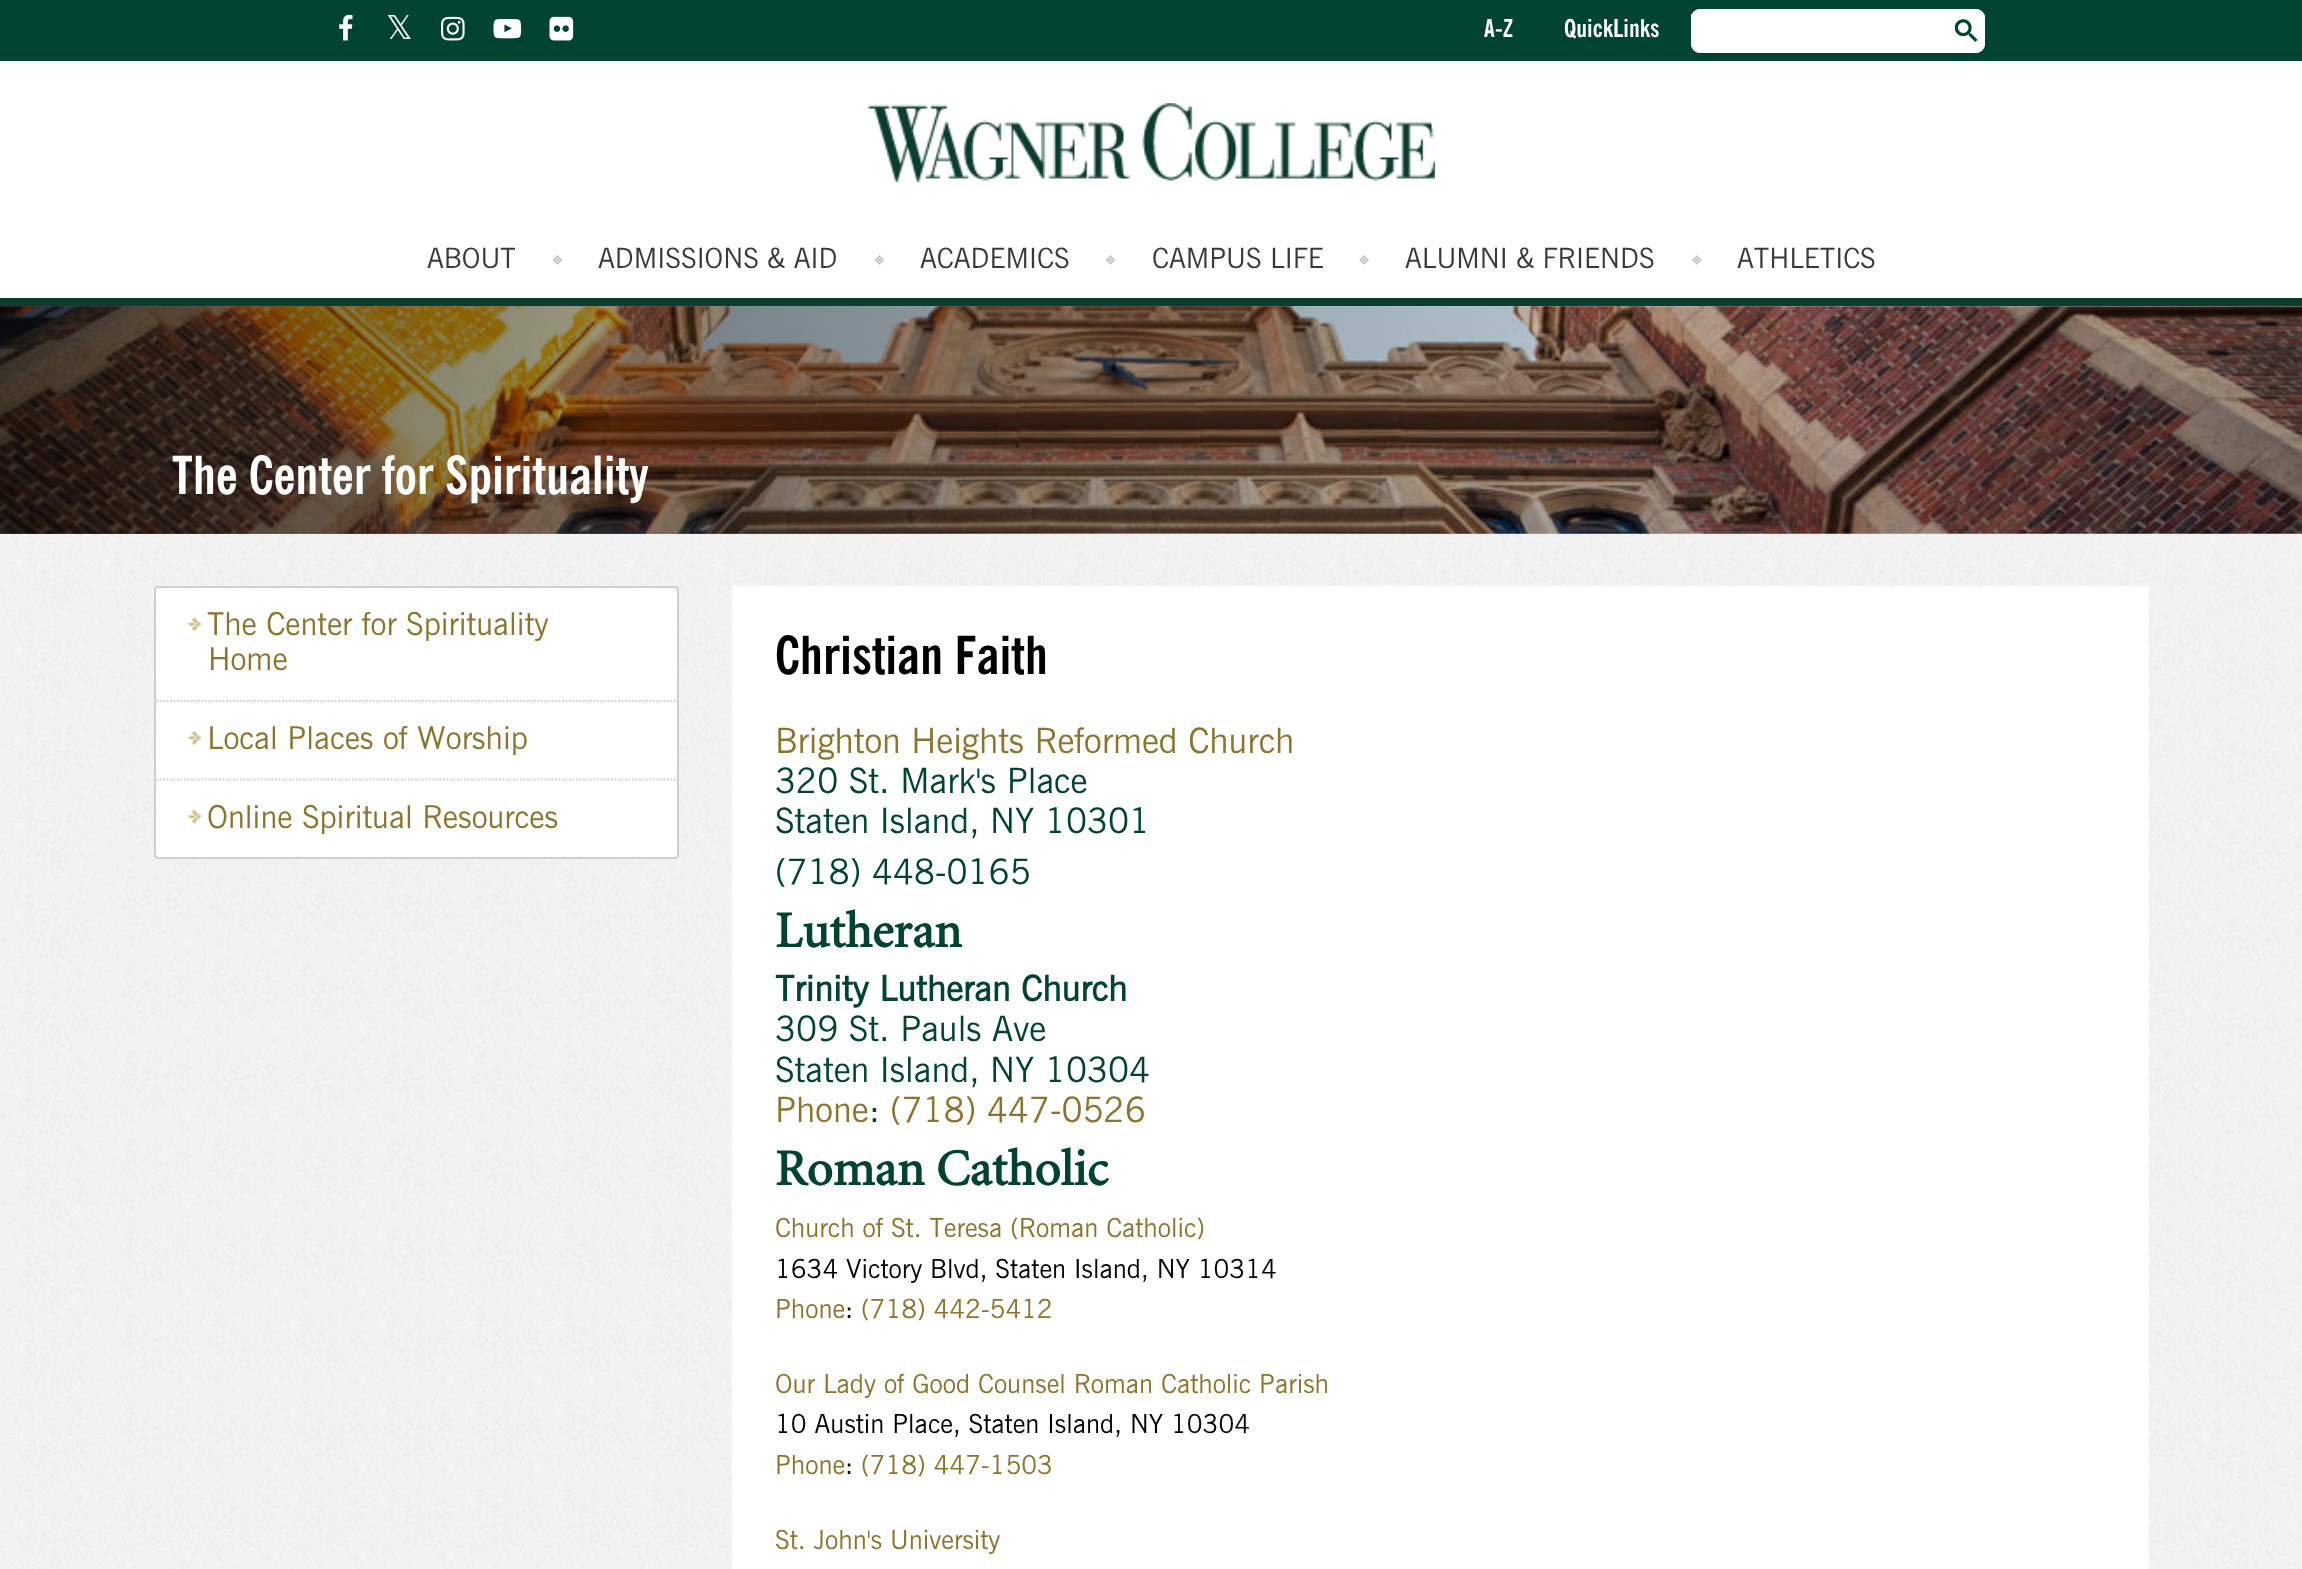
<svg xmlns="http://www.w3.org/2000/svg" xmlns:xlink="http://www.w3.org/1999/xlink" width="2302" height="1569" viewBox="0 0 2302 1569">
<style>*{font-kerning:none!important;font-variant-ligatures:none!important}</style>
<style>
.cls-1{font:33px DejaVu Sans;fill:#ffffff}
.cls-2{font:24.5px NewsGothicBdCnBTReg;fill:#ffffff}
.cls-3{font:28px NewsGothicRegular;fill:#393939}
.cls-4{font:52.5px NewsGothicBdCnBTReg;fill:#ffffff}
.cls-5{font:31.5px NewsGothicRegular;fill:#8a742e}
.cls-6{font:52.5px NewsGothicBdCnBTReg;fill:#000000}
.cls-7{font:35px NewsGothicRegular;fill:#8a742e}
.cls-8{font:35px NewsGothicRegular;fill:#004331}
.cls-9{font:bold 50.75px Minion;fill:#004331}
.cls-10{font:bold 35px NewsGothicRegular;fill:#004331}
.cls-11{font:26.25px NewsGothicRegular;fill:#8a742e}
.cls-12{font:26.25px NewsGothicRegular;fill:#000000}
</style>
<defs>
<linearGradient id="g1" gradientUnits="userSpaceOnUse" x1="1843" y1="420" x2="0" y2="420"><stop offset="0" stop-color="#000000" stop-opacity="0"/><stop offset="1" stop-color="#000000" stop-opacity="0.6"/></linearGradient>
</defs>
<rect width="100%" height="100%" fill="#ffffff"/>
<image xlink:href="image0.png" x="0" y="306" width="2302" height="1263"/>
<rect fill="#0b3c2f" x="0" y="298" width="2302" height="8"/>
<rect fill="#004331" x="0" y="0" width="2302" height="61"/>
<image xlink:href="image1.png" x="339" y="14" width="14" height="27"/>
<image xlink:href="image2.png" x="441" y="16" width="24" height="25"/>
<image xlink:href="image3.png" x="493" y="19" width="29" height="20"/>
<image xlink:href="image4.png" x="549" y="16" width="25" height="25"/>
<rect fill="#ffffff" x="1691" y="9" width="294" height="44" rx="9"/>
<rect fill="#ffffff" x="1691" y="9" width="257" height="44" rx="9"/>
<rect fill="#ffffff" x="1691" y="14" width="1" height="32"/>
<rect fill="#ffffff" x="1948" y="9" width="37" height="44" rx="9"/>
<image xlink:href="image5.png" x="1955" y="19" width="23" height="23"/>
<image xlink:href="image6.png" x="868" y="103" width="567" height="79"/>
<image xlink:href="image7.png" x="553" y="255" width="9" height="10"/>
<image xlink:href="image8.png" x="875" y="255" width="9" height="10"/>
<image xlink:href="image8.png" x="1106" y="255" width="9" height="10"/>
<image xlink:href="image9.png" x="1359" y="255" width="10" height="10"/>
<image xlink:href="image10.png" x="1692" y="255" width="9" height="10"/>
<image xlink:href="image11.png" x="0" y="306" width="2302" height="228"/>
<rect fill="url(#g1)" x="0" y="306" width="1777" height="228"/>
<image xlink:href="image12.png" x="102" y="586" width="2099" height="983"/>
<rect fill="#ffffff" stroke="#cfcfcf" stroke-width="2" x="155" y="587" width="523" height="271" rx="3"/>
<path fill="none" stroke="#cfcfcf" stroke-width="1.8" stroke-dasharray="1.75 1.75" d="M156 701H677"/>
<image xlink:href="image13.png" x="187" y="616" width="15" height="16"/>
<path fill="none" stroke="#cfcfcf" stroke-width="1.8" stroke-dasharray="1.75 1.75" d="M156 779.5H677"/>
<image xlink:href="image14.png" x="187" y="730" width="15" height="16"/>
<image xlink:href="image15.png" x="187" y="808" width="15" height="17"/>
<rect fill="#ffffff" x="732" y="586" width="1417" height="983"/>
<text class="cls-1" x="386" y="39">𝕏</text>
<text class="cls-2" x="1484" y="37">A-Z</text>
<text class="cls-2" x="1564" y="37">QuickLinks</text>
<text class="cls-3" x="427" y="268">ABOUT</text>
<text class="cls-3" x="598" y="268">ADMISSIONS &amp; AID</text>
<text class="cls-3" x="920" y="268">ACADEMICS</text>
<text class="cls-3" x="1152" y="268">CAMPUS LIFE</text>
<text class="cls-3" x="1405" y="268">ALUMNI &amp; FRIENDS</text>
<text class="cls-3" x="1737" y="268">ATHLETICS</text>
<text class="cls-4" x="172" y="494">The Center for Spirituality</text>
<text class="cls-5" x="207" y="635">The Center for Spirituality</text>
<text class="cls-5" x="208" y="670">Home</text>
<text class="cls-5" x="207" y="749">Local Places of Worship</text>
<text class="cls-5" x="207" y="828">Online Spiritual Resources</text>
<text class="cls-6" x="775" y="674">Christian Faith</text>
<text class="cls-7" x="775" y="753">Brighton Heights Reformed Church</text>
<text class="cls-8"><tspan x="775" y="793">320 St. Mark's Place</tspan><tspan x="775" y="833">Staten Island, NY 10301</tspan><tspan x="775" y="884">(718) 448-0165</tspan></text>
<text class="cls-9" x="775" y="947">Lutheran</text>
<text class="cls-10" x="775" y="1001">Trinity Lutheran Church</text>
<text class="cls-8"><tspan x="775" y="1041">309 St. Pauls Ave</tspan><tspan x="775" y="1082">Staten Island, NY 10304</tspan></text>
<text class="cls-7" x="775" y="1122">Phone</text>
<text class="cls-8" x="869" y="1122">:</text>
<text class="cls-7" x="890" y="1122">(718) 447-0526</text>
<text class="cls-9" x="775" y="1185">Roman Catholic</text>
<text class="cls-11" x="775" y="1237">Church of St. Teresa (Roman Catholic)</text>
<text class="cls-12" x="775" y="1278">1634 Victory Blvd, Staten Island, NY 10314</text>
<text class="cls-11" x="775" y="1318">Phone</text>
<text class="cls-12" x="845" y="1318">:</text>
<text class="cls-11" x="861" y="1318">(718) 442-5412</text>
<text class="cls-11" x="775" y="1393">Our Lady of Good Counsel Roman Catholic Parish</text>
<text class="cls-12" x="775" y="1433">10 Austin Place, Staten Island, NY 10304</text>
<text class="cls-11" x="775" y="1474">Phone</text>
<text class="cls-12" x="845" y="1474">:</text>
<text class="cls-11" x="861" y="1474">(718) 447-1503</text>
<text class="cls-11" x="775" y="1549">St. John's University</text>
</svg>
